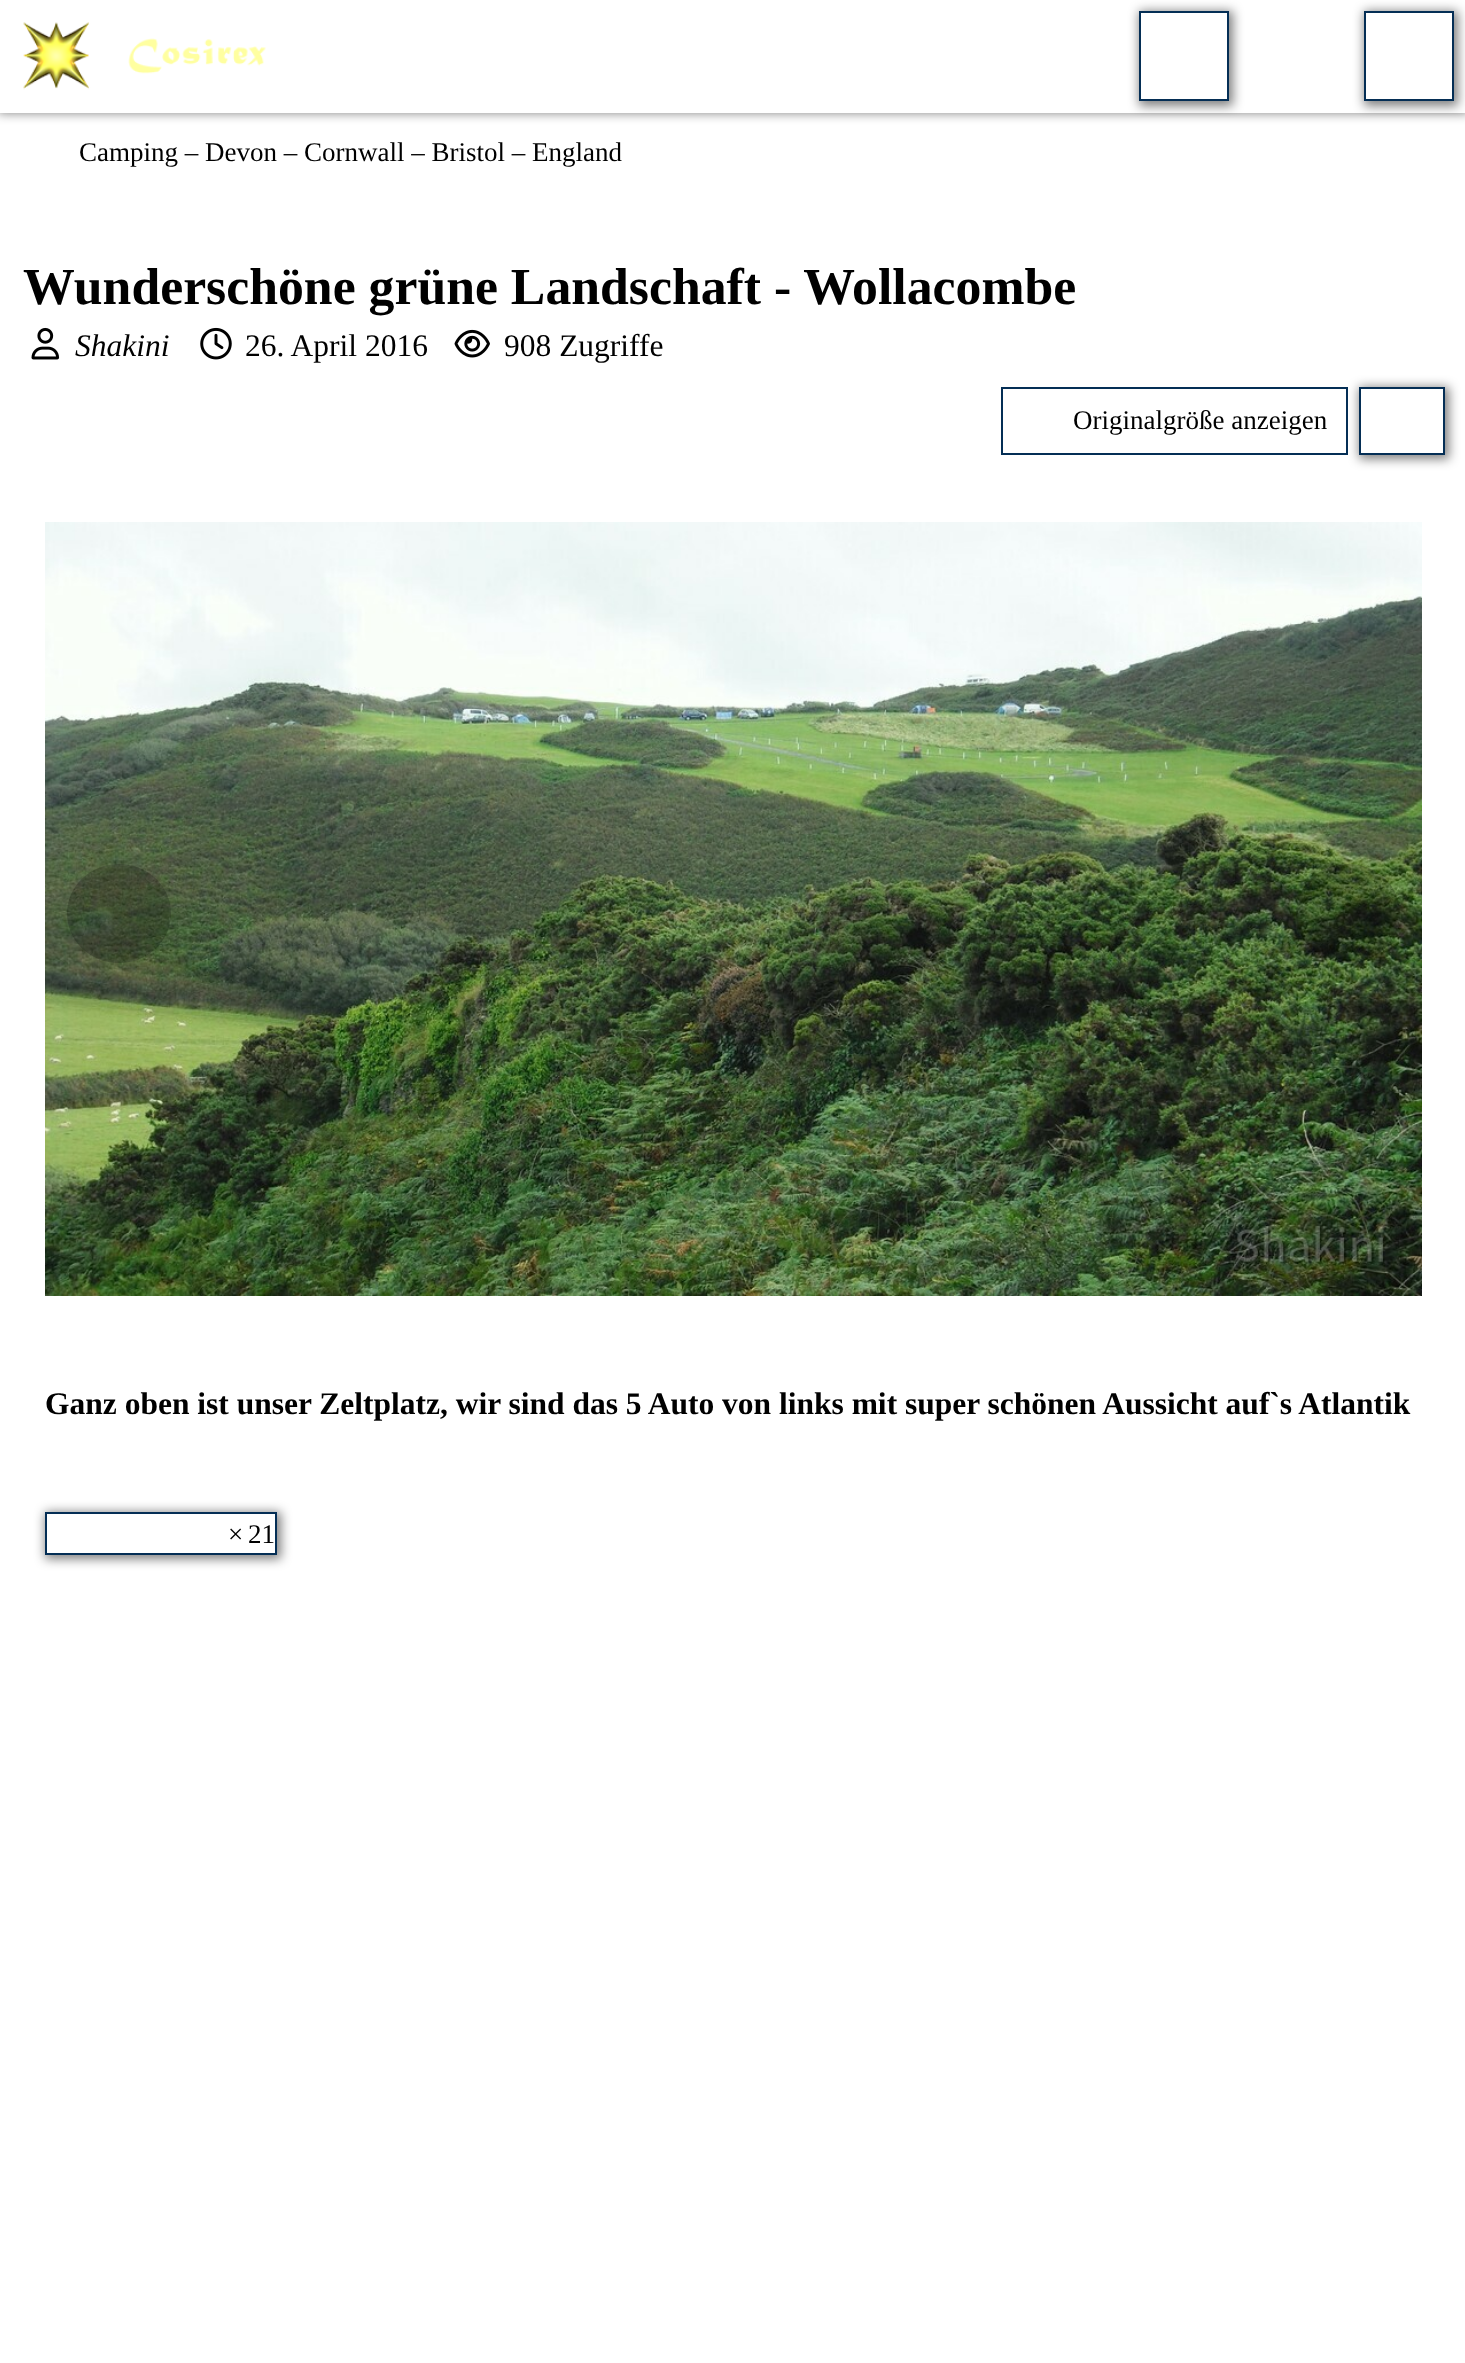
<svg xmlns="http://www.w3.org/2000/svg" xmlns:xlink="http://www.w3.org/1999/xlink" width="1465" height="2363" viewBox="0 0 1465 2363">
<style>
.cls-1{font:27px Liberation Serif;fill:#000000}
.cls-2{font:bold 51.75px Liberation Serif;fill:#000000}
.cls-3{font:italic 31.5px Liberation Serif;fill:#000000}
.cls-4{font:31.5px Liberation Serif;fill:#000000}
.cls-5{font:bold 31.5px Liberation Serif;fill:#000000}
</style>
<defs>
<clipPath id="clip1"><path d="M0 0H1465V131H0ZM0 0H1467V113H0Z" clip-rule="evenodd"/></clipPath>
<clipPath id="clip2"><path d="M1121 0H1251V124H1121ZM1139 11H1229V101H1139Z" clip-rule="evenodd"/></clipPath>
<clipPath id="clip3"><path d="M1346 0H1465V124H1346ZM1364 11H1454V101H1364Z" clip-rule="evenodd"/></clipPath>
<clipPath id="clip4"><path d="M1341 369H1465V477H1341ZM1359 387H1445V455H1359Z" clip-rule="evenodd"/></clipPath>
<clipPath id="clip5"><path d="M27 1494H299V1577H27ZM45 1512H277V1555H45Z" clip-rule="evenodd"/></clipPath>
</defs>
<rect width="100%" height="100%" fill="#ffffff"/>
<g clip-path="url(#clip1)">
<rect fill="#000000" fill-opacity="0.5" filter="blur(5.5px)" x="-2" y="-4" width="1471" height="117"/>
</g>
<image xlink:href="image0.png" x="23" y="22" width="243" height="68"/>
<g clip-path="url(#clip2)">
<rect fill="#000000" fill-opacity="0.5" filter="blur(5.5px)" x="1139" y="11" width="94" height="95"/>
</g>
<rect fill="none" stroke="#042e55" stroke-width="2" x="1140" y="12" width="88" height="88"/>
<g clip-path="url(#clip3)">
<rect fill="#000000" fill-opacity="0.5" filter="blur(5.5px)" x="1364" y="11" width="94" height="95"/>
</g>
<rect fill="none" stroke="#042e55" stroke-width="2" x="1365" y="12" width="88" height="88"/>
<image xlink:href="image1.png" x="31" y="327" width="29" height="33"/>
<image xlink:href="image2.png" x="200" y="327" width="32" height="33"/>
<image xlink:href="image3.png" x="454" y="329" width="36" height="29"/>
<g clip-path="url(#clip4)">
<rect fill="#000000" fill-opacity="0.5" filter="blur(5.5px)" x="1359" y="387" width="90" height="72"/>
</g>
<rect fill="none" stroke="#042e55" stroke-width="2" x="1002" y="388" width="345" height="66"/>
<rect fill="none" stroke="#042e55" stroke-width="2" x="1360" y="388" width="84" height="66"/>
<image xlink:href="image4.png" x="45" y="522" width="1377" height="774"/>
<ellipse fill="#000000" fill-opacity="0.2" cx="119" cy="913.5" rx="52" ry="49.5"/>
<ellipse fill="#000000" fill-opacity="0.2" cx="1348" cy="913.5" rx="52" ry="49.5"/>
<g clip-path="url(#clip5)">
<rect fill="#000000" fill-opacity="0.5" filter="blur(5.5px)" x="45" y="1512" width="236" height="47"/>
</g>
<rect fill="none" stroke="#042e55" stroke-width="2" x="46" y="1513" width="230" height="41"/>
<text class="cls-1" x="79" y="161">Camping – Devon – Cornwall – Bristol – England</text>
<text class="cls-2" x="23" y="304">Wunderschöne grüne Landschaft - Wollacombe</text>
<text class="cls-3" x="75" y="356">Shakini</text>
<text class="cls-4" x="245" y="356">26. April 2016</text>
<text class="cls-4" x="504" y="356">908 Zugriffe</text>
<text class="cls-1" x="1073" y="429">Originalgröße anzeigen</text>
<text class="cls-5" x="45" y="1414">Ganz oben ist unser Zeltplatz, wir sind das 5 Auto von links mit super schönen Aussicht auf`s Atlantik</text>
<text class="cls-1" x="228" y="1543">×</text>
<text class="cls-1" x="248" y="1543">21</text>
</svg>
